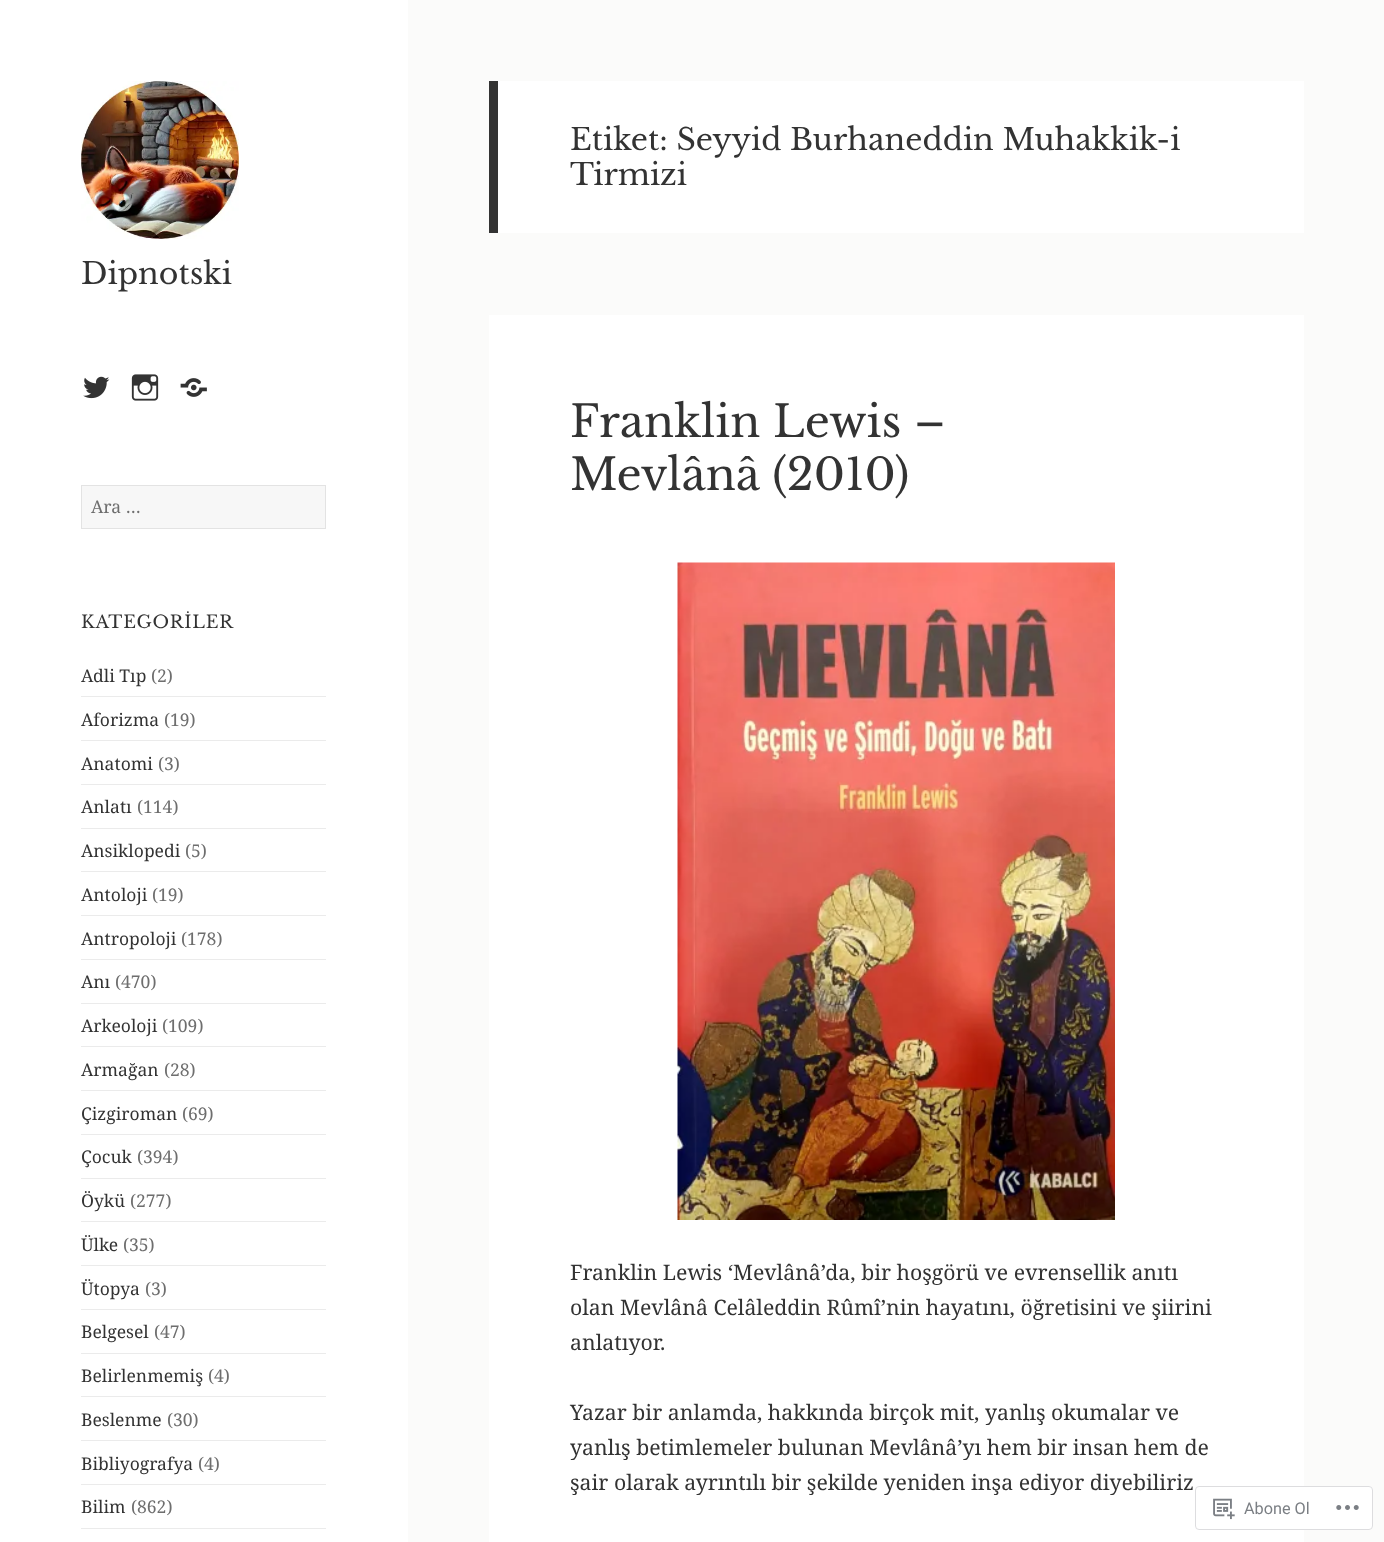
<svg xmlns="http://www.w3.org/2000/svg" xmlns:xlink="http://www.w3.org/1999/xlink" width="1384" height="1542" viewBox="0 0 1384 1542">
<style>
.cls-1{font:30px Libre Baskerville;fill:#333333}
.cls-2{font:17.5px Noto Serif;fill:#6e6e6e}
.cls-3{font:17.5px Libre Baskerville;letter-spacing:0.75px;fill:#333333}
.cls-4{font:17.5px Noto Serif;fill:#333333}
.cls-5{font:43.75px Libre Baskerville;fill:#333333}
.cls-6{font:21.25px Noto Serif;fill:#333333}
.cls-7{font:16.25px Roboto;fill:#7b7f84}
</style>
<rect width="100%" height="100%" fill="#fbfbfa"/>
<rect fill="#ffffff" x="0" y="0" width="408" height="1542"/>
<image xlink:href="image0.png" x="81" y="81" width="158" height="158"/>
<image xlink:href="image1.png" x="83" y="376" width="27" height="23"/>
<image xlink:href="image2.png" x="131" y="374" width="28" height="27"/>
<image xlink:href="image3.png" x="180" y="378" width="27" height="19"/>
<rect fill="#f7f7f7" stroke="#e3e3e3" x="81.5" y="485.5" width="244" height="43"/>
<rect fill="#ebebeb" x="81" y="696" width="245" height="1"/>
<rect fill="#ebebeb" x="81" y="740" width="245" height="1"/>
<rect fill="#ebebeb" x="81" y="784" width="245" height="1"/>
<rect fill="#ebebeb" x="81" y="828" width="245" height="1"/>
<rect fill="#ebebeb" x="81" y="871" width="245" height="1"/>
<rect fill="#ebebeb" x="81" y="915" width="245" height="1"/>
<rect fill="#ebebeb" x="81" y="959" width="245" height="1"/>
<rect fill="#ebebeb" x="81" y="1003" width="245" height="1"/>
<rect fill="#ebebeb" x="81" y="1046" width="245" height="1"/>
<rect fill="#ebebeb" x="81" y="1090" width="245" height="1"/>
<rect fill="#ebebeb" x="81" y="1134" width="245" height="1"/>
<rect fill="#ebebeb" x="81" y="1178" width="245" height="1"/>
<rect fill="#ebebeb" x="81" y="1221" width="245" height="1"/>
<rect fill="#ebebeb" x="81" y="1265" width="245" height="1"/>
<rect fill="#ebebeb" x="81" y="1309" width="245" height="1"/>
<rect fill="#ebebeb" x="81" y="1353" width="245" height="1"/>
<rect fill="#ebebeb" x="81" y="1396" width="245" height="1"/>
<rect fill="#ebebeb" x="81" y="1440" width="245" height="1"/>
<rect fill="#ebebeb" x="81" y="1484" width="245" height="1"/>
<rect fill="#ebebeb" x="81" y="1528" width="245" height="1"/>
<rect fill="#ffffff" x="498" y="81" width="806" height="152"/>
<rect fill="#333333" x="489" y="81" width="9" height="152"/>
<rect fill="#ffffff" x="489" y="315" width="815" height="1227"/>
<image xlink:href="image4.png" x="677" y="562" width="438" height="658"/>
<rect fill="#ffffff" fill-opacity="0.98" x="1195" y="1486" width="178" height="44" rx="4"/>
<rect fill="none" stroke="#dcdcde" stroke-opacity="0.98" x="1195.5" y="1486.5" width="177" height="43" rx="3.5"/>
<image xlink:href="image5.png" x="1213" y="1498" width="22" height="22"/>
<image xlink:href="image6.png" x="1336" y="1505" width="23" height="5"/>
<text class="cls-1" x="81" y="284">Dipnotski</text>
<text class="cls-2" x="91" y="513">Ara …</text>
<text class="cls-3" x="81" y="628">KATEGORİLER</text>
<text class="cls-4" x="81" y="682">Adli Tıp</text>
<text class="cls-2" x="151" y="682">(2)</text>
<text class="cls-4" x="81" y="726">Aforizma</text>
<text class="cls-2" x="164" y="726">(19)</text>
<text class="cls-4" x="81" y="770">Anatomi</text>
<text class="cls-2" x="158" y="770">(3)</text>
<text class="cls-4" x="81" y="813">Anlatı</text>
<text class="cls-2" x="137" y="813">(114)</text>
<text class="cls-4" x="81" y="857">Ansiklopedi</text>
<text class="cls-2" x="185" y="857">(5)</text>
<text class="cls-4" x="81" y="901">Antoloji</text>
<text class="cls-2" x="152" y="901">(19)</text>
<text class="cls-4" x="81" y="945">Antropoloji</text>
<text class="cls-2" x="181" y="945">(178)</text>
<text class="cls-4" x="81" y="988">Anı</text>
<text class="cls-2" x="115" y="988">(470)</text>
<text class="cls-4" x="81" y="1032">Arkeoloji</text>
<text class="cls-2" x="162" y="1032">(109)</text>
<text class="cls-4" x="81" y="1076">Armağan</text>
<text class="cls-2" x="164" y="1076">(28)</text>
<text class="cls-4" x="81" y="1120">Çizgiroman</text>
<text class="cls-2" x="182" y="1120">(69)</text>
<text class="cls-4" x="81" y="1163">Çocuk</text>
<text class="cls-2" x="137" y="1163">(394)</text>
<text class="cls-4" x="81" y="1207">Öykü</text>
<text class="cls-2" x="130" y="1207">(277)</text>
<text class="cls-4" x="81" y="1251">Ülke</text>
<text class="cls-2" x="123" y="1251">(35)</text>
<text class="cls-4" x="81" y="1295">Ütopya</text>
<text class="cls-2" x="145" y="1295">(3)</text>
<text class="cls-4" x="81" y="1338">Belgesel</text>
<text class="cls-2" x="154" y="1338">(47)</text>
<text class="cls-4" x="81" y="1382">Belirlenmemiş</text>
<text class="cls-2" x="208" y="1382">(4)</text>
<text class="cls-4" x="81" y="1426">Beslenme</text>
<text class="cls-2" x="167" y="1426">(30)</text>
<text class="cls-4" x="81" y="1470">Bibliyografya</text>
<text class="cls-2" x="198" y="1470">(4)</text>
<text class="cls-4" x="81" y="1513">Bilim</text>
<text class="cls-2" x="131" y="1513">(862)</text>
<text class="cls-1"><tspan x="570" y="150">Etiket: Seyyid Burhaneddin Muhakkik-i</tspan><tspan x="570" y="185">Tirmizi</tspan></text>
<text class="cls-5"><tspan x="570" y="437">Franklin Lewis –</tspan><tspan x="570" y="490">Mevlânâ (2010)</tspan></text>
<text class="cls-6"><tspan x="570" y="1280">Franklin Lewis ‘Mevlânâ’da, bir hoşgörü ve evrensellik anıtı</tspan><tspan x="570" y="1315">olan Mevlânâ Celâleddin Rûmî’nin hayatını, öğretisini ve şiirini</tspan><tspan x="570" y="1350">anlatıyor.</tspan></text>
<text class="cls-6"><tspan x="570" y="1420">Yazar bir anlamda, hakkında birçok mit, yanlış okumalar ve</tspan><tspan x="570" y="1455">yanlış betimlemeler bulunan Mevlânâ’yı hem bir insan hem de</tspan><tspan x="570" y="1490">şair olarak ayrıntılı bir şekilde yeniden inşa ediyor diyebiliriz</tspan></text>
<text class="cls-7" x="1244" y="1514">Abone Ol</text>
</svg>
